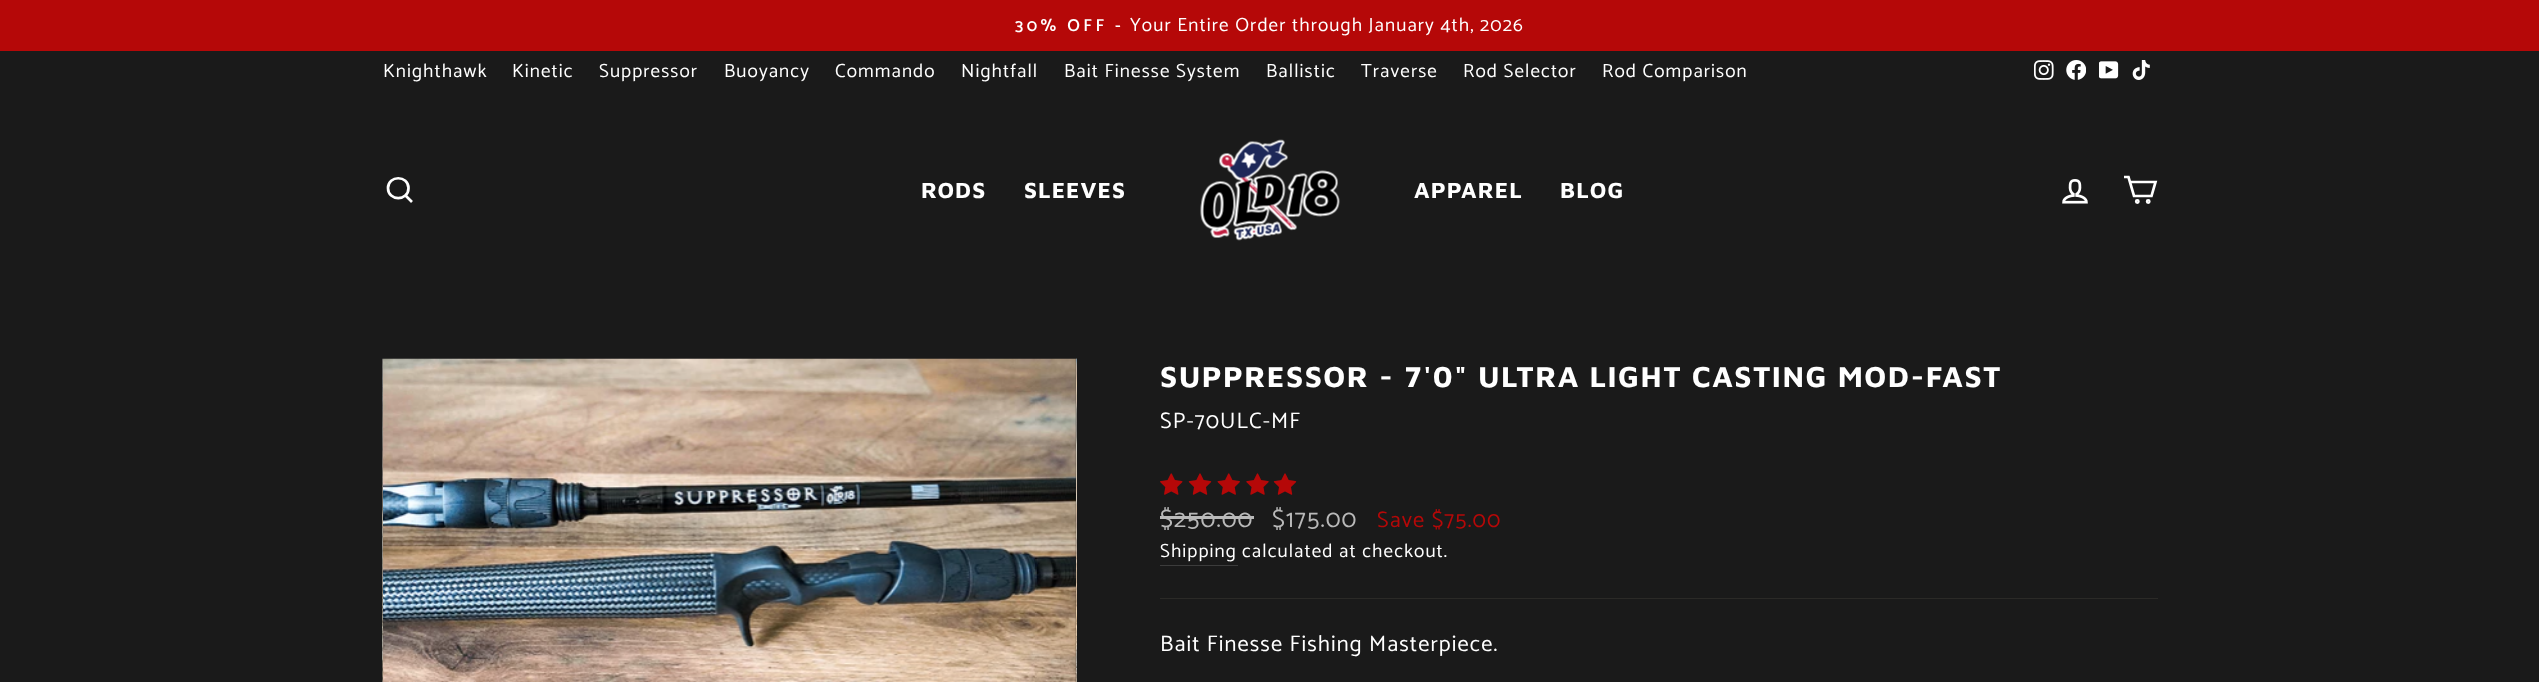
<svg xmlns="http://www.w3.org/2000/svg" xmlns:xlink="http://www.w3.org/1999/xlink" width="2539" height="682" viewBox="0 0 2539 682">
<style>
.cls-1{font:600 17.25px Catamaran;letter-spacing:3.5px;fill:#ffffff}
.cls-2{font:19.1px Catamaran;letter-spacing:1.1px;fill:#ffffff}
.cls-3{font:bold 22.5px Maven Pro;letter-spacing:1.1px;fill:#ffffff}
.cls-4{font:bold 29.75px Maven Pro;letter-spacing:1.5px;fill:#ffffff}
.cls-5{font:22.5px Catamaran;letter-spacing:1.1px;fill:#ffffff}
.cls-6{font:25px Catamaran;letter-spacing:1.1px;fill:#b9b9b9}
.cls-7{font:22.5px Catamaran;letter-spacing:1.1px;fill:#b50808}
</style>
<rect width="100%" height="100%" fill="#1a1a1a"/>
<rect fill="#b50808" x="0" y="0" width="2539" height="51"/>
<image xlink:href="image0.png" x="2034" y="60" width="20" height="20"/>
<image xlink:href="image1.png" x="2066" y="60" width="20" height="20"/>
<image xlink:href="image2.png" x="2099" y="61" width="20" height="18"/>
<image xlink:href="image3.png" x="2132" y="60" width="18" height="20"/>
<path fill="none" stroke="#ffffff" stroke-width="2.7" d="M408.5 188C408.5 201.5 388 201.5 388 188C388 175 408.5 175 408.5 188ZM412 202L405.5 195.5"/>
<image xlink:href="image4.png" x="1200" y="139" width="140" height="102"/>
<image xlink:href="image5.png" x="2062" y="179" width="26" height="25"/>
<path fill="none" stroke="#ffffff" stroke-width="2.7" d="M2130 182H2155.5L2151.5 196H2134L2128.5 177H2124"/>
<circle fill="none" stroke="#ffffff" stroke-width="2.7" cx="2137.3" cy="201.5" r="1.1"/>
<circle fill="none" stroke="#ffffff" stroke-width="2.7" cx="2148.2" cy="201.5" r="1.1"/>
<image xlink:href="image6.png" x="382" y="358" width="1" height="324"/>
<image xlink:href="image7.png" x="383" y="358" width="694" height="324"/>
<image xlink:href="image8.png" x="1076" y="358" width="1" height="324"/>
<image xlink:href="image9.png" x="1160" y="473" width="23" height="22"/>
<image xlink:href="image10.png" x="1188" y="473" width="24" height="22"/>
<image xlink:href="image11.png" x="1217" y="473" width="23" height="22"/>
<image xlink:href="image12.png" x="1246" y="473" width="23" height="22"/>
<image xlink:href="image10.png" x="1273" y="473" width="24" height="22"/>
<rect fill="#b9b9b9" x="1160" y="516" width="94" height="3"/>
<rect fill="#3c3c3c" x="1160" y="565" width="78" height="1"/>
<rect fill="#2b2a27" x="1160" y="598" width="998" height="1"/>
<text class="cls-1" x="1015" y="31">30% OFF -</text>
<text class="cls-2" x="1130" y="31">Your Entire Order through January 4th, 2026</text>
<text class="cls-2" x="383" y="77">Knighthawk</text>
<text class="cls-2" x="512" y="77">Kinetic</text>
<text class="cls-2" x="599" y="77">Suppressor</text>
<text class="cls-2" x="724" y="77">Buoyancy</text>
<text class="cls-2" x="835" y="77">Commando</text>
<text class="cls-2" x="961" y="77">Nightfall</text>
<text class="cls-2" x="1064" y="77">Bait Finesse System</text>
<text class="cls-2" x="1266" y="77">Ballistic</text>
<text class="cls-2" x="1361" y="77">Traverse</text>
<text class="cls-2" x="1463" y="77">Rod Selector</text>
<text class="cls-2" x="1602" y="77">Rod Comparison</text>
<text class="cls-3" x="921" y="198">RODS</text>
<text class="cls-3" x="1024" y="198">SLEEVES</text>
<text class="cls-3" x="1414" y="198">APPAREL</text>
<text class="cls-3" x="1560" y="198">BLOG</text>
<text class="cls-4" x="1160" y="387">SUPPRESSOR - 7'0" ULTRA LIGHT CASTING MOD-FAST</text>
<text class="cls-5" x="1160" y="428">SP-70ULC-MF</text>
<text class="cls-6" x="1160" y="527">$250.00</text>
<text class="cls-6" x="1272" y="527">$175.00</text>
<text class="cls-7" x="1377" y="527">Save $75.00</text>
<text class="cls-2" x="1160" y="557">Shipping</text>
<text class="cls-2" x="1242" y="557">calculated at checkout.</text>
<text class="cls-5" x="1160" y="651">Bait Finesse Fishing Masterpiece.</text>
</svg>
